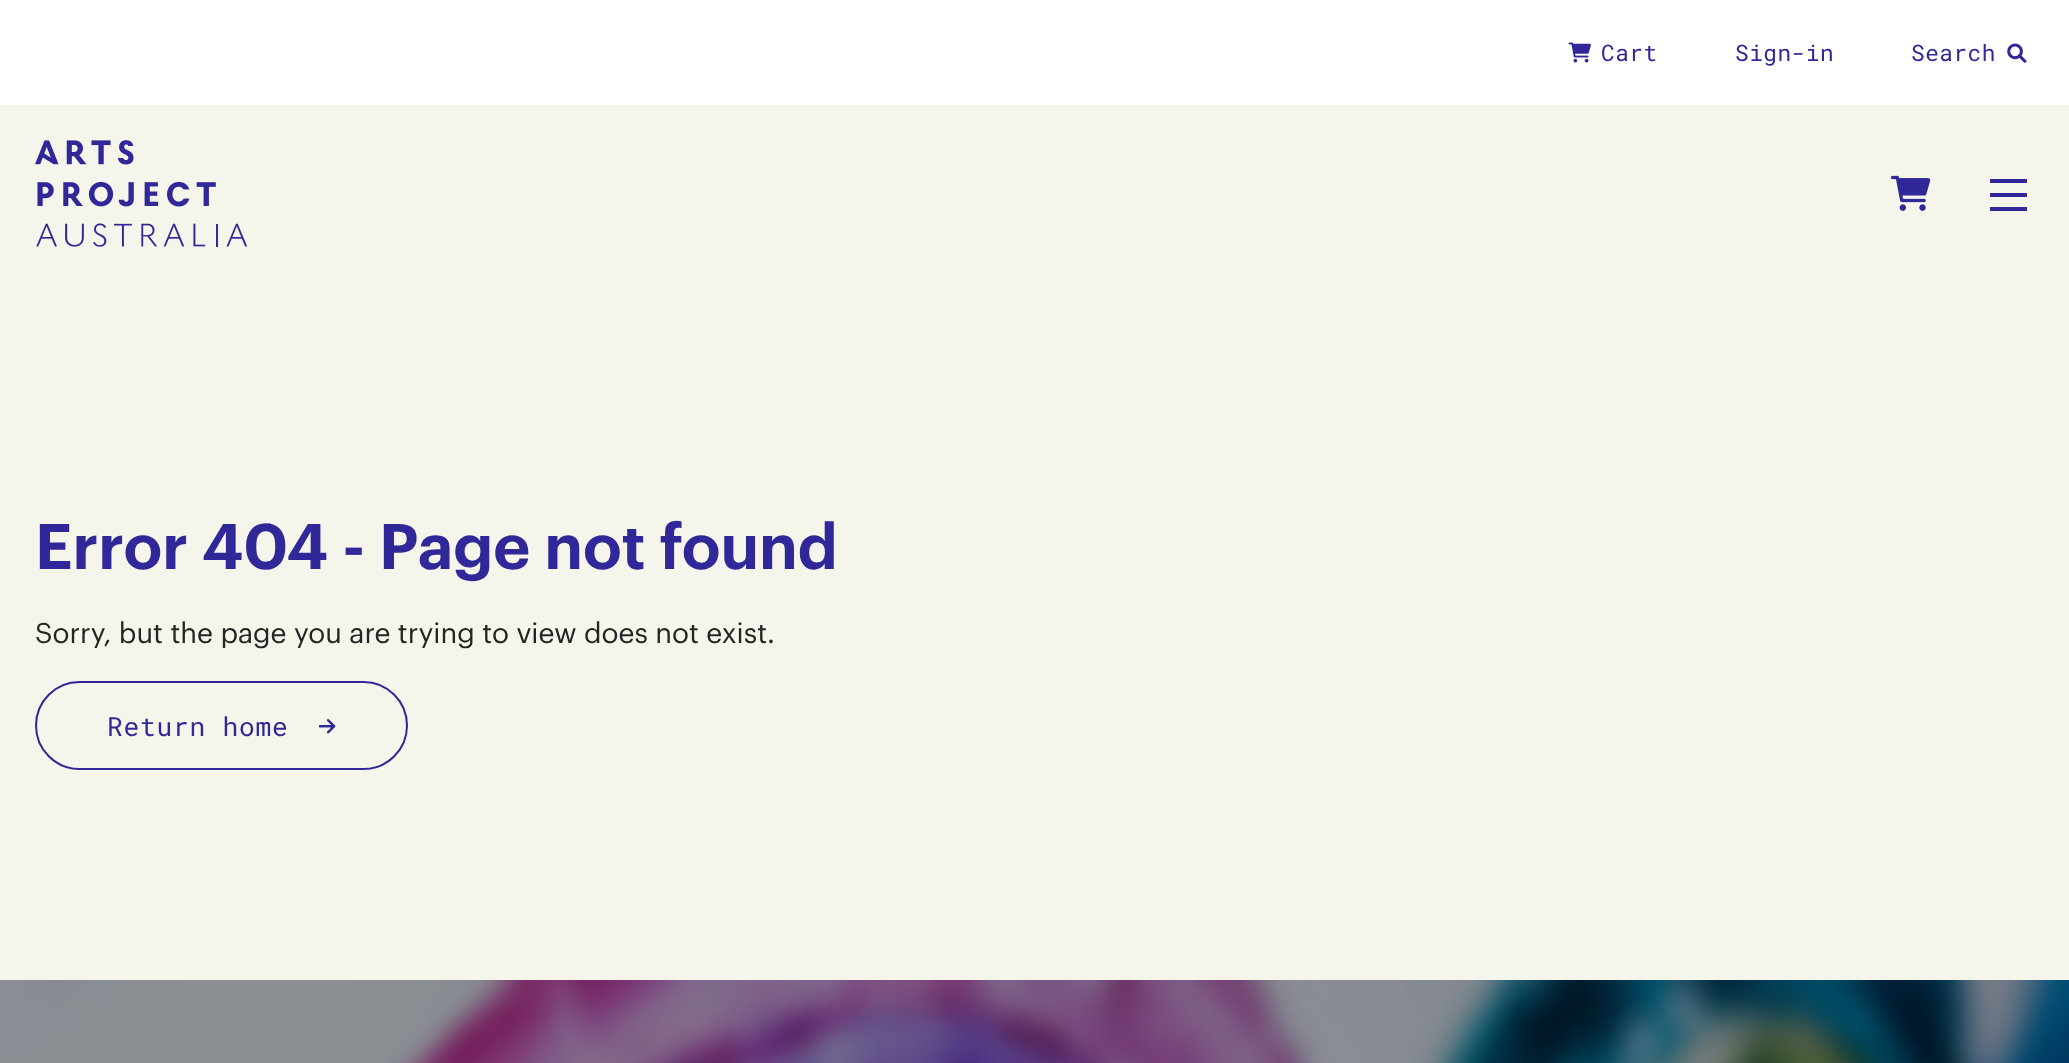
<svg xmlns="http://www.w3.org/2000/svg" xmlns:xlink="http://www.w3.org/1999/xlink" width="2069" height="1063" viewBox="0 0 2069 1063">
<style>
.cls-1{font:22.75px Roboto Mono;letter-spacing:0.5px;fill:#302898}
.cls-2{font:600 63px Graphik;fill:#302898}
.cls-3{font:28px Graphik;fill:#242424}
.cls-4{font:26.25px Roboto Mono;letter-spacing:0.75px;fill:#302898}
</style>
<rect width="100%" height="100%" fill="#f6f5eb"/>
<rect fill="#ffffff" x="0" y="0" width="2069" height="105"/>
<image xlink:href="image0.png" x="1568" y="42" width="23" height="21"/>
<image xlink:href="image1.png" x="2007" y="43" width="20" height="20"/>
<image xlink:href="image2.png" x="35" y="140" width="213" height="107"/>
<image xlink:href="image3.png" x="1890" y="175" width="41" height="36"/>
<rect fill="#302898" x="1990" y="179" width="37" height="4"/>
<rect fill="#302898" x="1990" y="193" width="37" height="4"/>
<rect fill="#302898" x="1990" y="207" width="37" height="4"/>
<rect fill="none" stroke="#302898" stroke-width="2" x="36" y="682" width="371" height="87" rx="43.5"/>
<image xlink:href="image4.png" x="319" y="719" width="17" height="15"/>
<image xlink:href="image5.png" x="0" y="980" width="2069" height="83"/>
<text class="cls-1" x="1601" y="61">Cart</text>
<text class="cls-1" x="1735" y="61">Sign-in</text>
<text class="cls-1" x="1911" y="61">Search</text>
<text class="cls-2" x="35" y="569">Error 404 - Page not found</text>
<text class="cls-3" x="35" y="643">Sorry, but the page you are trying to view does not exist.</text>
<text class="cls-4" x="107" y="736">Return home</text>
</svg>
